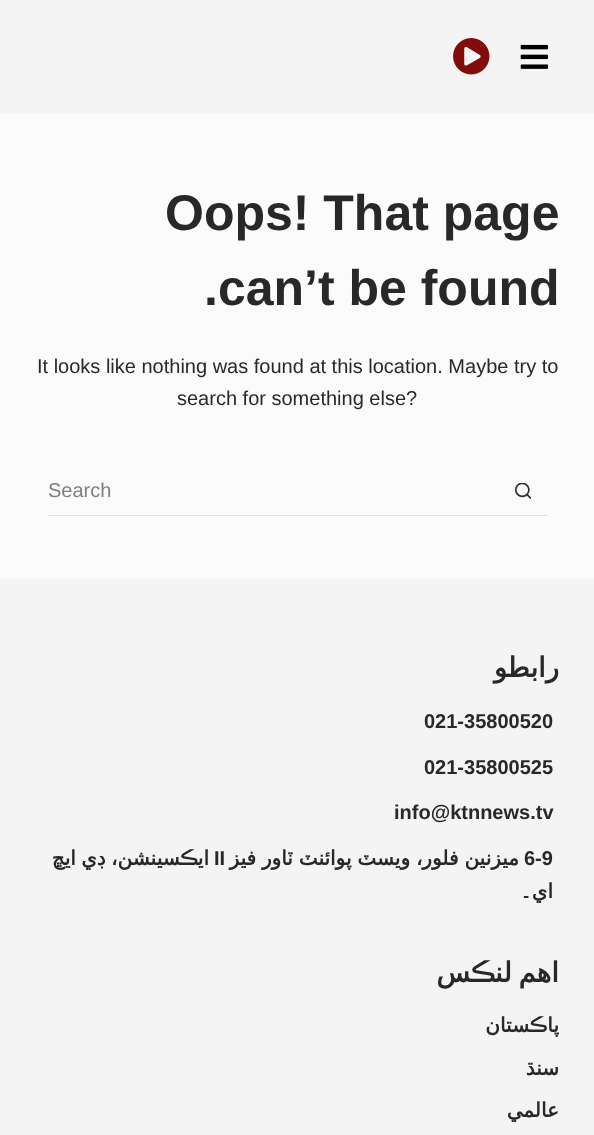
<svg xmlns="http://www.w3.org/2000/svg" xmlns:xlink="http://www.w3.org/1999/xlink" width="594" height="1135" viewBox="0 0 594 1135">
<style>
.cls-1{font:bold 50px Liberation Sans;fill:#282828}
.cls-2{font:20px Liberation Sans;fill:#282828}
.cls-3{font:20px Liberation Sans;fill:#7f7f7f}
.cls-4{font:bold 27.5px DejaVu Sans;direction:rtl;fill:#282828}
.cls-5{font:bold 20px Liberation Sans;fill:#282828}
.cls-6{font:bold 20px DejaVu Sans;direction:rtl;fill:#282828}
.cls-7{font:600 20px Cascadia Code;direction:rtl;fill:#282828}
</style>
<rect width="100%" height="100%" fill="#fbfbfb"/>
<rect fill="#f4f4f5" x="0" y="0" width="594" height="113"/>
<image xlink:href="image0.png" x="453" y="38" width="37" height="37"/>
<image xlink:href="image1.png" x="520" y="44" width="29" height="25"/>
<rect fill="#dfdfe2" x="48" y="515" width="500" height="1"/>
<image xlink:href="image2.png" x="515" y="483" width="16" height="16"/>
<path fill="none" stroke="#fbfbfb" stroke-width="1.9" stroke-linecap="round" d="M513.5 491.5C512.5 486.5 516 481.5 521 481"/>
<rect fill="#f4f4f5" x="0" y="579" width="594" height="556"/>
<text class="cls-1" x="165" y="230">Oops! That page</text>
<text class="cls-1" x="204" y="305">.can’t be found</text>
<text class="cls-2" x="37" y="373">It looks like nothing was found at this location. Maybe try to</text>
<text class="cls-2" x="177" y="405">search for something else?</text>
<text class="cls-3" x="48" y="497">Search</text>
<text class="cls-4" x="559" y="677">رابطو</text>
<text class="cls-5" x="424" y="728">021-35800520</text>
<text class="cls-5" x="424" y="774">021-35800525</text>
<text class="cls-5" x="394" y="819">info@ktnnews.tv</text>
<text class="cls-6" x="209" y="865" word-spacing="-1">ايڪسينشن، ڊي ايڇ</text>
<text class="cls-5" x="214" y="865">II</text>
<text class="cls-6" x="519" y="865" word-spacing="-0.5">ميزنين فلور، ويسٽ پوائنٽ ٽاور فيز</text>
<text class="cls-5" x="524" y="865">6-9</text>
<text class="cls-7" x="532" y="898">۔</text>
<text class="cls-6" x="553" y="898">اي</text>
<text class="cls-4" x="559" y="982" word-spacing="-2">اهم لنڪس</text>
<text class="cls-6" x="559" y="1032">پاڪستان</text>
<text class="cls-6" x="559" y="1075">سنڌ</text>
<text class="cls-6" x="559" y="1117">عالمي</text>
</svg>
